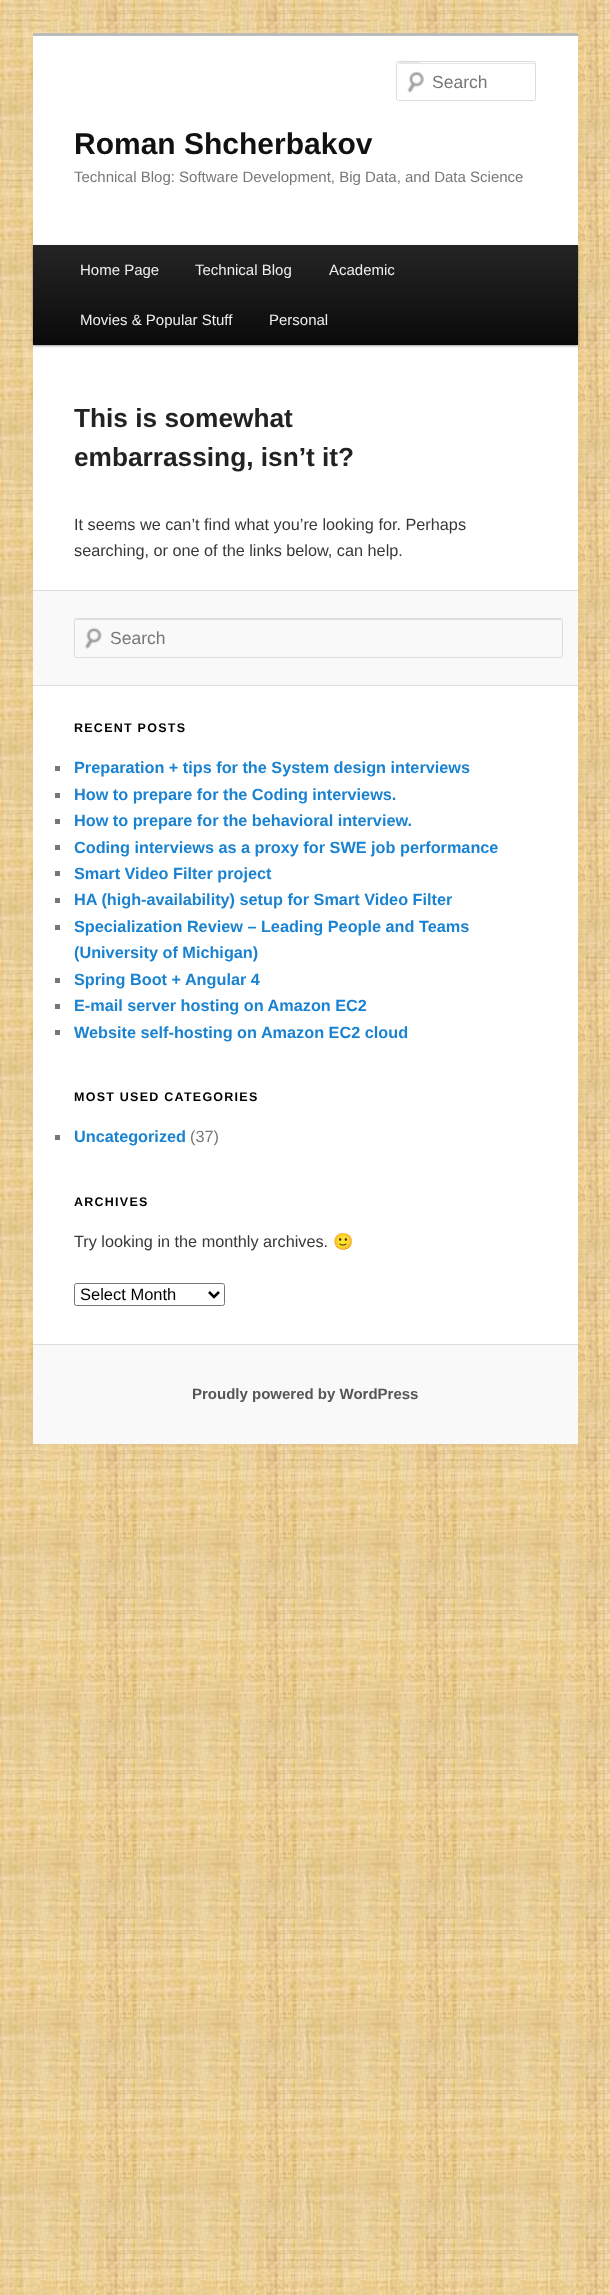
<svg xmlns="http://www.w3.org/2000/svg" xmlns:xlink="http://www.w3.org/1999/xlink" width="610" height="2295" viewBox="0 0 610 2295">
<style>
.cls-1{font:17.5px Liberation Sans;fill:#777777}
.cls-2{font:bold 30px Liberation Sans;fill:#111111}
.cls-3{font:15px Liberation Sans;fill:#777777}
.cls-4{font:15px Liberation Sans;fill:#eeeeee}
.cls-5{font:bold 26.25px Liberation Sans;fill:#222222}
.cls-6{font:16.25px Liberation Sans;fill:#373737}
.cls-7{font:bold 12.5px Liberation Sans;letter-spacing:1.25px;fill:#000000}
.cls-8{font:bold 16.25px Liberation Sans;fill:#1982d1}
.cls-9{font:16.25px Liberation Sans;fill:#777777}
.cls-10{font:16.25px Noto Color Emoji;fill:#373737}
.cls-11{font:16.5px Liberation Sans;fill:#000000}
.cls-12{font:bold 15px Liberation Sans;fill:#555555}
</style>
<defs>
<linearGradient id="g1" gradientUnits="userSpaceOnUse" x1="305" y1="245" x2="305" y2="345"><stop offset="0" stop-color="#252525"/><stop offset="1" stop-color="#0a0a0a"/></linearGradient>
</defs>
<rect width="100%" height="100%" fill="#ffffff"/>
<image xlink:href="image0.png" x="0" y="0" width="610" height="2295"/>
<rect fill="#ffffff" x="33" y="36" width="545" height="1308"/>
<rect fill="#bbbbbb" x="33" y="33" width="545" height="3"/>
<image xlink:href="image1.png" x="407" y="71" width="17" height="22"/>
<path fill="#e6e6e6" d="M399 64H534L535 65V63H422C421 63 398 57 398 65C398 64 398 64 399 64Z"/>
<rect fill="none" stroke="#dddddd" x="396.5" y="61.5" width="139" height="39" rx="2"/>
<rect fill="#000000" fill-opacity="0.4" filter="blur(1px)" x="33" y="246" width="545" height="100"/>
<rect fill="url(#g1)" x="33" y="245" width="545" height="100"/>
<rect fill="#f9f9f9" x="33" y="591" width="545" height="94"/>
<rect fill="#dddddd" x="33" y="590" width="545" height="1"/>
<rect fill="#dddddd" x="33" y="685" width="545" height="1"/>
<image xlink:href="image2.png" x="85" y="627" width="17" height="22"/>
<path fill="#e0e0e0" d="M76 620H560L561 621V619H76C75 619 75 620 75 621Z"/>
<rect fill="none" stroke="#dddddd" x="74.5" y="618.5" width="488" height="39" rx="2"/>
<rect fill="#777777" x="55" y="766" width="5" height="5"/>
<rect fill="#777777" x="55" y="793" width="5" height="5"/>
<rect fill="#777777" x="55" y="819" width="5" height="5"/>
<rect fill="#777777" x="55" y="845" width="5" height="5"/>
<rect fill="#777777" x="55" y="871" width="5" height="5"/>
<rect fill="#777777" x="55" y="898" width="5" height="5"/>
<rect fill="#777777" x="55" y="925" width="5" height="5"/>
<rect fill="#777777" x="55" y="978" width="5" height="5"/>
<rect fill="#777777" x="55" y="1004" width="5" height="5"/>
<rect fill="#777777" x="55" y="1030" width="5" height="5"/>
<rect fill="#777777" x="55" y="1135" width="5" height="5"/>
<rect fill="none" stroke="#767676" x="74.5" y="1283.5" width="150" height="22" rx="2"/>
<path fill="none" stroke="#000000" stroke-width="2.5" d="M209 1292L214 1297L219 1292"/>
<rect fill="#f9f9f9" x="33" y="1345" width="545" height="99"/>
<rect fill="#dddddd" x="33" y="1344" width="545" height="1"/>
<text class="cls-1" x="432" y="88">Search</text>
<text class="cls-2" x="74" y="154">Roman Shcherbakov</text>
<text class="cls-3" x="74" y="182">Technical Blog: Software Development, Big Data, and Data Science</text>
<text class="cls-4" x="80" y="275">Home Page</text>
<text class="cls-4" x="195" y="275">Technical Blog</text>
<text class="cls-4" x="329" y="275">Academic</text>
<text class="cls-4" x="80" y="325">Movies &amp; Popular Stuff</text>
<text class="cls-4" x="269" y="325">Personal</text>
<text class="cls-5"><tspan x="74" y="427">This is somewhat</tspan><tspan x="74" y="466">embarrassing, isn’t it?</tspan></text>
<text class="cls-6"><tspan x="74" y="530">It seems we can’t find what you’re looking for. Perhaps</tspan><tspan x="74" y="556">searching, or one of the links below, can help.</tspan></text>
<text class="cls-1" x="110" y="644">Search</text>
<text class="cls-7" x="74" y="732">RECENT POSTS</text>
<text class="cls-8"><tspan x="74" y="773">Preparation + tips for the System design interviews</tspan><tspan x="74" y="800">How to prepare for the Coding interviews.</tspan><tspan x="74" y="826">How to prepare for the behavioral interview.</tspan><tspan x="74" y="853">Coding interviews as a proxy for SWE job performance</tspan><tspan x="74" y="879">Smart Video Filter project</tspan><tspan x="74" y="905">HA (high-availability) setup for Smart Video Filter</tspan><tspan x="74" y="932">Specialization Review – Leading People and Teams</tspan><tspan x="74" y="958">(University of Michigan)</tspan><tspan x="74" y="985">Spring Boot + Angular 4</tspan><tspan x="74" y="1011">E-mail server hosting on Amazon EC2</tspan><tspan x="74" y="1038">Website self-hosting on Amazon EC2 cloud</tspan></text>
<text class="cls-7" x="74" y="1101">MOST USED CATEGORIES</text>
<text class="cls-8" x="74" y="1142">Uncategorized</text>
<text class="cls-9" x="190" y="1142">(37)</text>
<text class="cls-7" x="74" y="1206">ARCHIVES</text>
<text class="cls-6" x="74" y="1247">Try looking in the monthly archives.</text>
<text class="cls-10" x="333" y="1247">🙂</text>
<text class="cls-11" x="80" y="1300">Select Month</text>
<text class="cls-12" x="192" y="1399">Proudly powered by WordPress</text>
</svg>
